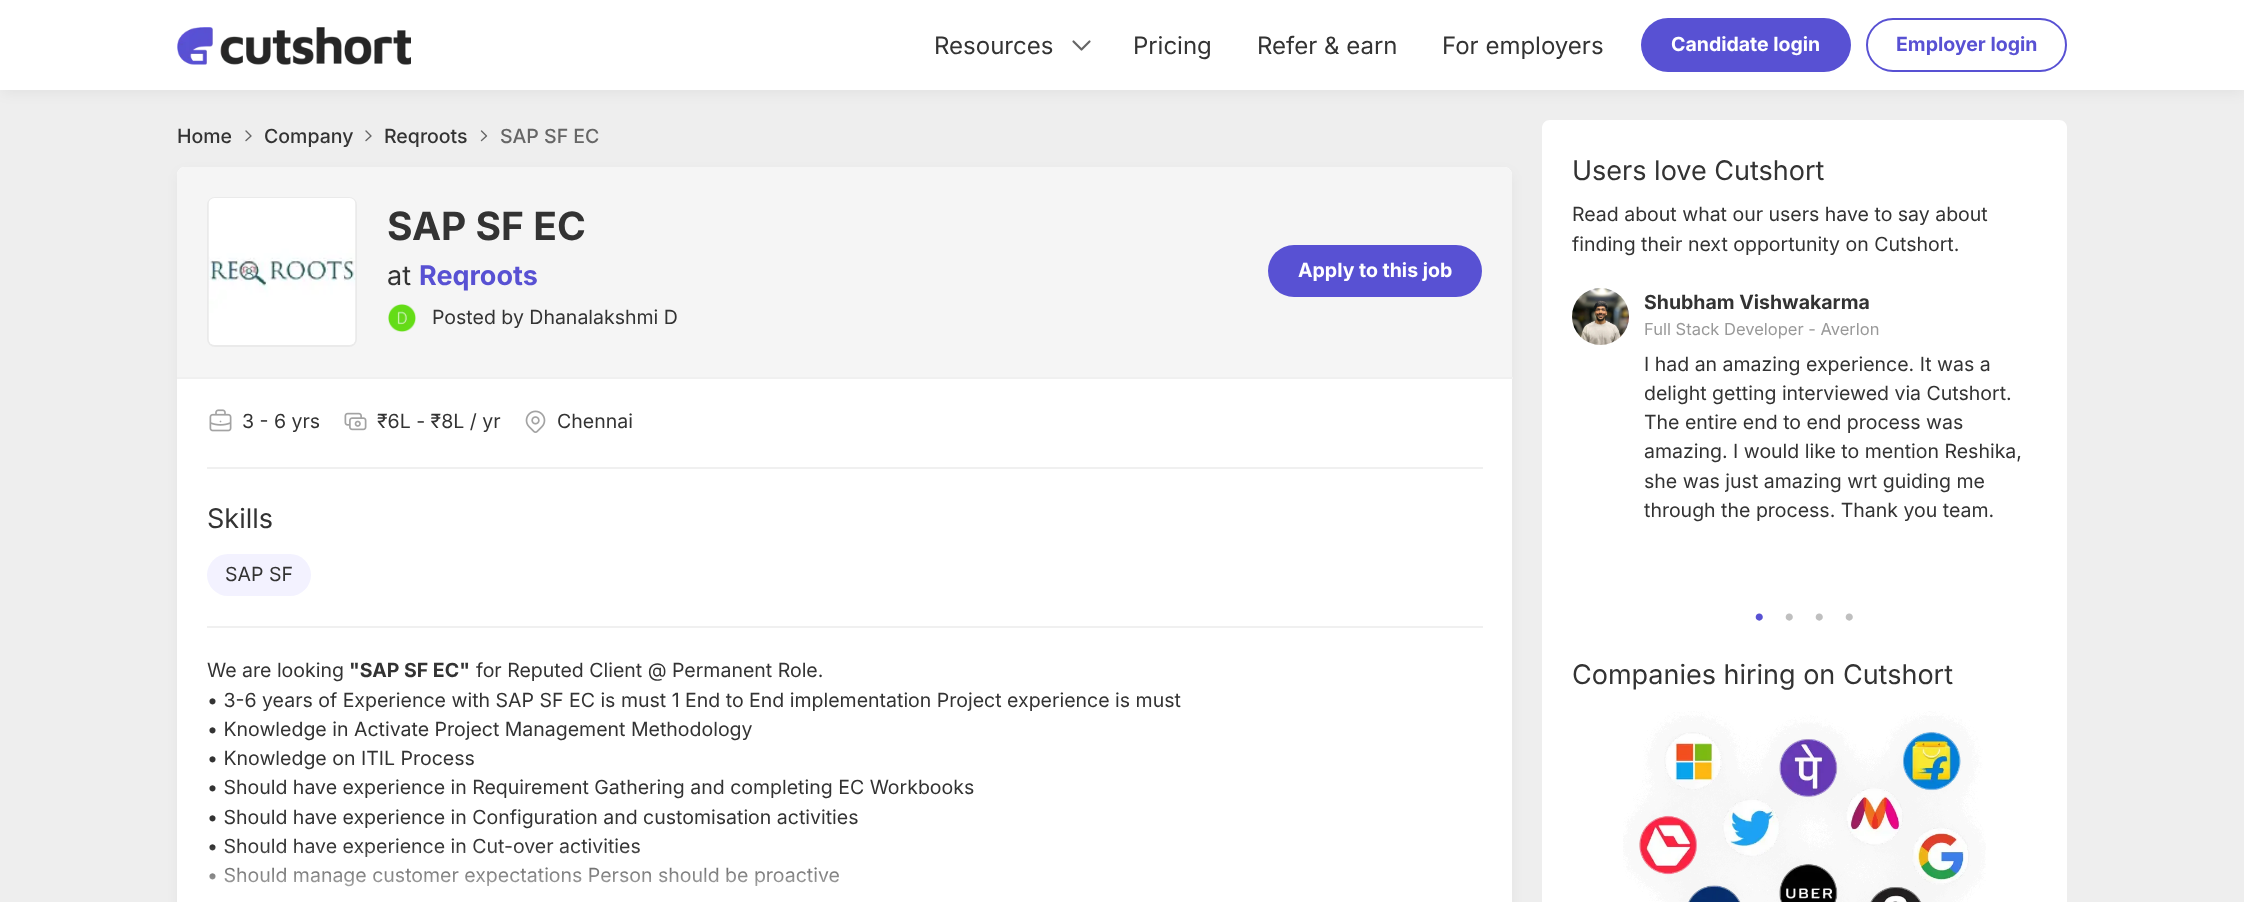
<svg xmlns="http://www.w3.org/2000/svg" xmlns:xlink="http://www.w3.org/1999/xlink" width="2244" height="902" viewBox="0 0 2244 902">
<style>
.cls-1{font:24px Inter;fill:#333333}
.cls-2{font:bold 19.5px Inter;fill:#ffffff}
.cls-3{font:bold 19.5px Inter;fill:#5851d3}
.cls-4{font:500 19.5px Inter;fill:#333333}
.cls-5{font:500 19.5px Inter;fill:#666666}
.cls-6{font:bold 39px Inter;fill:#333333}
.cls-7{font:27px Inter;fill:#333333}
.cls-8{font:bold 27px Inter;fill:#5851d3}
.cls-9{font:19.5px Inter;fill:#333333}
.cls-10{font:bold 19.5px Inter;fill:#333333}
.cls-11{font:16.5px Inter;fill:#999999}
.cls-12{font:30px Liberation Serif;fill:#5851d3}
.cls-13{font:30px Liberation Serif;fill:#bfbfbf}
</style>
<defs>
<linearGradient id="g1" gradientUnits="userSpaceOnUse" x1="845" y1="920" x2="845" y2="845"><stop offset="0" stop-color="#ffffff"/><stop offset="1" stop-color="#ffffff" stop-opacity="0"/></linearGradient>
</defs>
<rect width="100%" height="100%" fill="#eeeeee"/>
<rect fill="#000000" fill-opacity="0.05" filter="blur(7px)" x="2" y="6" width="2241" height="87"/>
<rect fill="#ffffff" x="0" y="0" width="2244" height="90"/>
<image xlink:href="image0.png" x="177" y="27" width="234" height="38"/>
<path fill="none" stroke="#666666" stroke-width="2.2" stroke-linecap="round" stroke-linejoin="round" d="M1089.5 41.5L1081.5 49.5L1073.5 41.5"/>
<rect fill="#5851d3" x="1641" y="18" width="210" height="54" rx="27"/>
<rect fill="none" stroke="#5851d3" stroke-width="2" x="1867" y="19" width="199" height="52" rx="26"/>
<path fill="none" stroke="#666666" stroke-width="1.4" stroke-linecap="round" stroke-linejoin="round" d="M246 131L251 136L246 140.5"/>
<path fill="none" stroke="#666666" stroke-width="1.4" stroke-linecap="round" stroke-linejoin="round" d="M366 131L371 136L366 140.5"/>
<path fill="none" stroke="#666666" stroke-width="1.4" stroke-linecap="round" stroke-linejoin="round" d="M481.5 131L486.5 136L481.5 140.5"/>
<rect fill="#000000" fill-opacity="0.05" filter="blur(7px)" x="179" y="173" width="1332" height="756" rx="6"/>
<path fill="#ffffff" d="M185 167H1504C1508.5 167 1512 170.5 1512 175V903H177V175C177 170.5 180.5 167 185 167Z"/>
<path fill="#f5f5f5" d="M185 167H1504C1508.5 167 1512 170.5 1512 175V377H177V175C177 170.5 180.5 167 185 167Z"/>
<rect fill="none" stroke="#eaeaea" stroke-width="2" x="208" y="198" width="148" height="148" rx="7"/>
<image xlink:href="image1.png" x="208" y="198" width="148" height="147"/>
<image xlink:href="image2.png" x="388" y="304" width="28" height="28"/>
<rect fill="#5851d3" x="1268" y="245" width="214" height="52" rx="26"/>
<rect fill="#f0f0f0" x="177" y="377" width="1336" height="2"/>
<image xlink:href="image3.png" x="209" y="409" width="23" height="23"/>
<image xlink:href="image4.png" x="344" y="412" width="23" height="19"/>
<image xlink:href="image5.png" x="525" y="410" width="21" height="23"/>
<rect fill="#f0f0f0" x="207" y="467" width="1276" height="2"/>
<rect fill="#f3f2ff" x="207" y="554" width="104" height="42" rx="21"/>
<rect fill="#f0f0f0" x="207" y="626" width="1276" height="2"/>
<path fill="#ffffff" d="M1550 120H2059C2063.5 120 2067 123.5 2067 128V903H1542V128C1542 123.5 1545.5 120 1550 120Z"/>
<image xlink:href="image6.png" x="1572" y="288" width="57" height="57"/>
<image xlink:href="image7.png" x="1623" y="711" width="363" height="191"/>
<text class="cls-1" x="934" y="54">Resources</text>
<text class="cls-1" x="1133" y="54">Pricing</text>
<text class="cls-1" x="1257" y="54">Refer &amp; earn</text>
<text class="cls-1" x="1442" y="54">For employers</text>
<text class="cls-2" x="1671" y="51">Candidate login</text>
<text class="cls-3" x="1896" y="51">Employer login</text>
<text class="cls-4" x="177" y="143">Home</text>
<text class="cls-4" x="264" y="143">Company</text>
<text class="cls-4" x="384" y="143">Reqroots</text>
<text class="cls-5" x="500" y="143">SAP SF EC</text>
<text class="cls-6" x="387" y="240">SAP SF EC</text>
<text class="cls-7" x="387" y="285">at</text>
<text class="cls-8" x="419" y="285">Reqroots</text>
<text class="cls-9" x="432" y="324">Posted by Dhanalakshmi D</text>
<text class="cls-2" x="1298" y="277">Apply to this job</text>
<text class="cls-9" x="242" y="428">3 - 6 yrs</text>
<text class="cls-9" x="377" y="428">₹6L - ₹8L / yr</text>
<text class="cls-9" x="557" y="428">Chennai</text>
<text class="cls-7" x="207" y="528">Skills</text>
<text class="cls-9" x="225" y="581">SAP SF</text>
<text class="cls-9" x="207" y="677">We are looking</text>
<text class="cls-10" x="349" y="677">"SAP SF EC"</text>
<text class="cls-9" x="476" y="677">for Reputed Client @ Permanent Role.</text>
<text class="cls-9"><tspan x="207" y="707">• 3-6 years of Experience with SAP SF EC is must 1 End to End implementation Project experience is must</tspan><tspan x="207" y="736">• Knowledge in Activate Project Management Methodology</tspan><tspan x="207" y="765">• Knowledge on ITIL Process</tspan><tspan x="207" y="794">• Should have experience in Requirement Gathering and completing EC Workbooks</tspan><tspan x="207" y="824">• Should have experience in Configuration and customisation activities</tspan><tspan x="207" y="853">• Should have experience in Cut-over activities</tspan><tspan x="207" y="882">• Should manage customer expectations Person should be proactive</tspan></text>
<rect fill="url(#g1)" x="209" y="847" width="630" height="40"/>
<text class="cls-7" x="1572" y="180">Users love Cutshort</text>
<text class="cls-9"><tspan x="1572" y="221">Read about what our users have to say about</tspan><tspan x="1572" y="251">finding their next opportunity on Cutshort.</tspan></text>
<text class="cls-10" x="1644" y="309">Shubham Vishwakarma</text>
<text class="cls-11" x="1644" y="335">Full Stack Developer - Averlon</text>
<text class="cls-9"><tspan x="1644" y="371">I had an amazing experience. It was a</tspan><tspan x="1644" y="400">delight getting interviewed via Cutshort.</tspan><tspan x="1644" y="429">The entire end to end process was</tspan><tspan x="1644" y="458">amazing. I would like to mention Reshika,</tspan><tspan x="1644" y="488">she was just amazing wrt guiding me</tspan><tspan x="1644" y="517">through the process. Thank you team.</tspan></text>
<text class="cls-12" x="1754" y="627">•</text>
<text class="cls-13" x="1784" y="627">•</text>
<text class="cls-13" x="1814" y="627">•</text>
<text class="cls-13" x="1844" y="627">•</text>
<text class="cls-7" x="1572" y="684">Companies hiring on Cutshort</text>
</svg>
